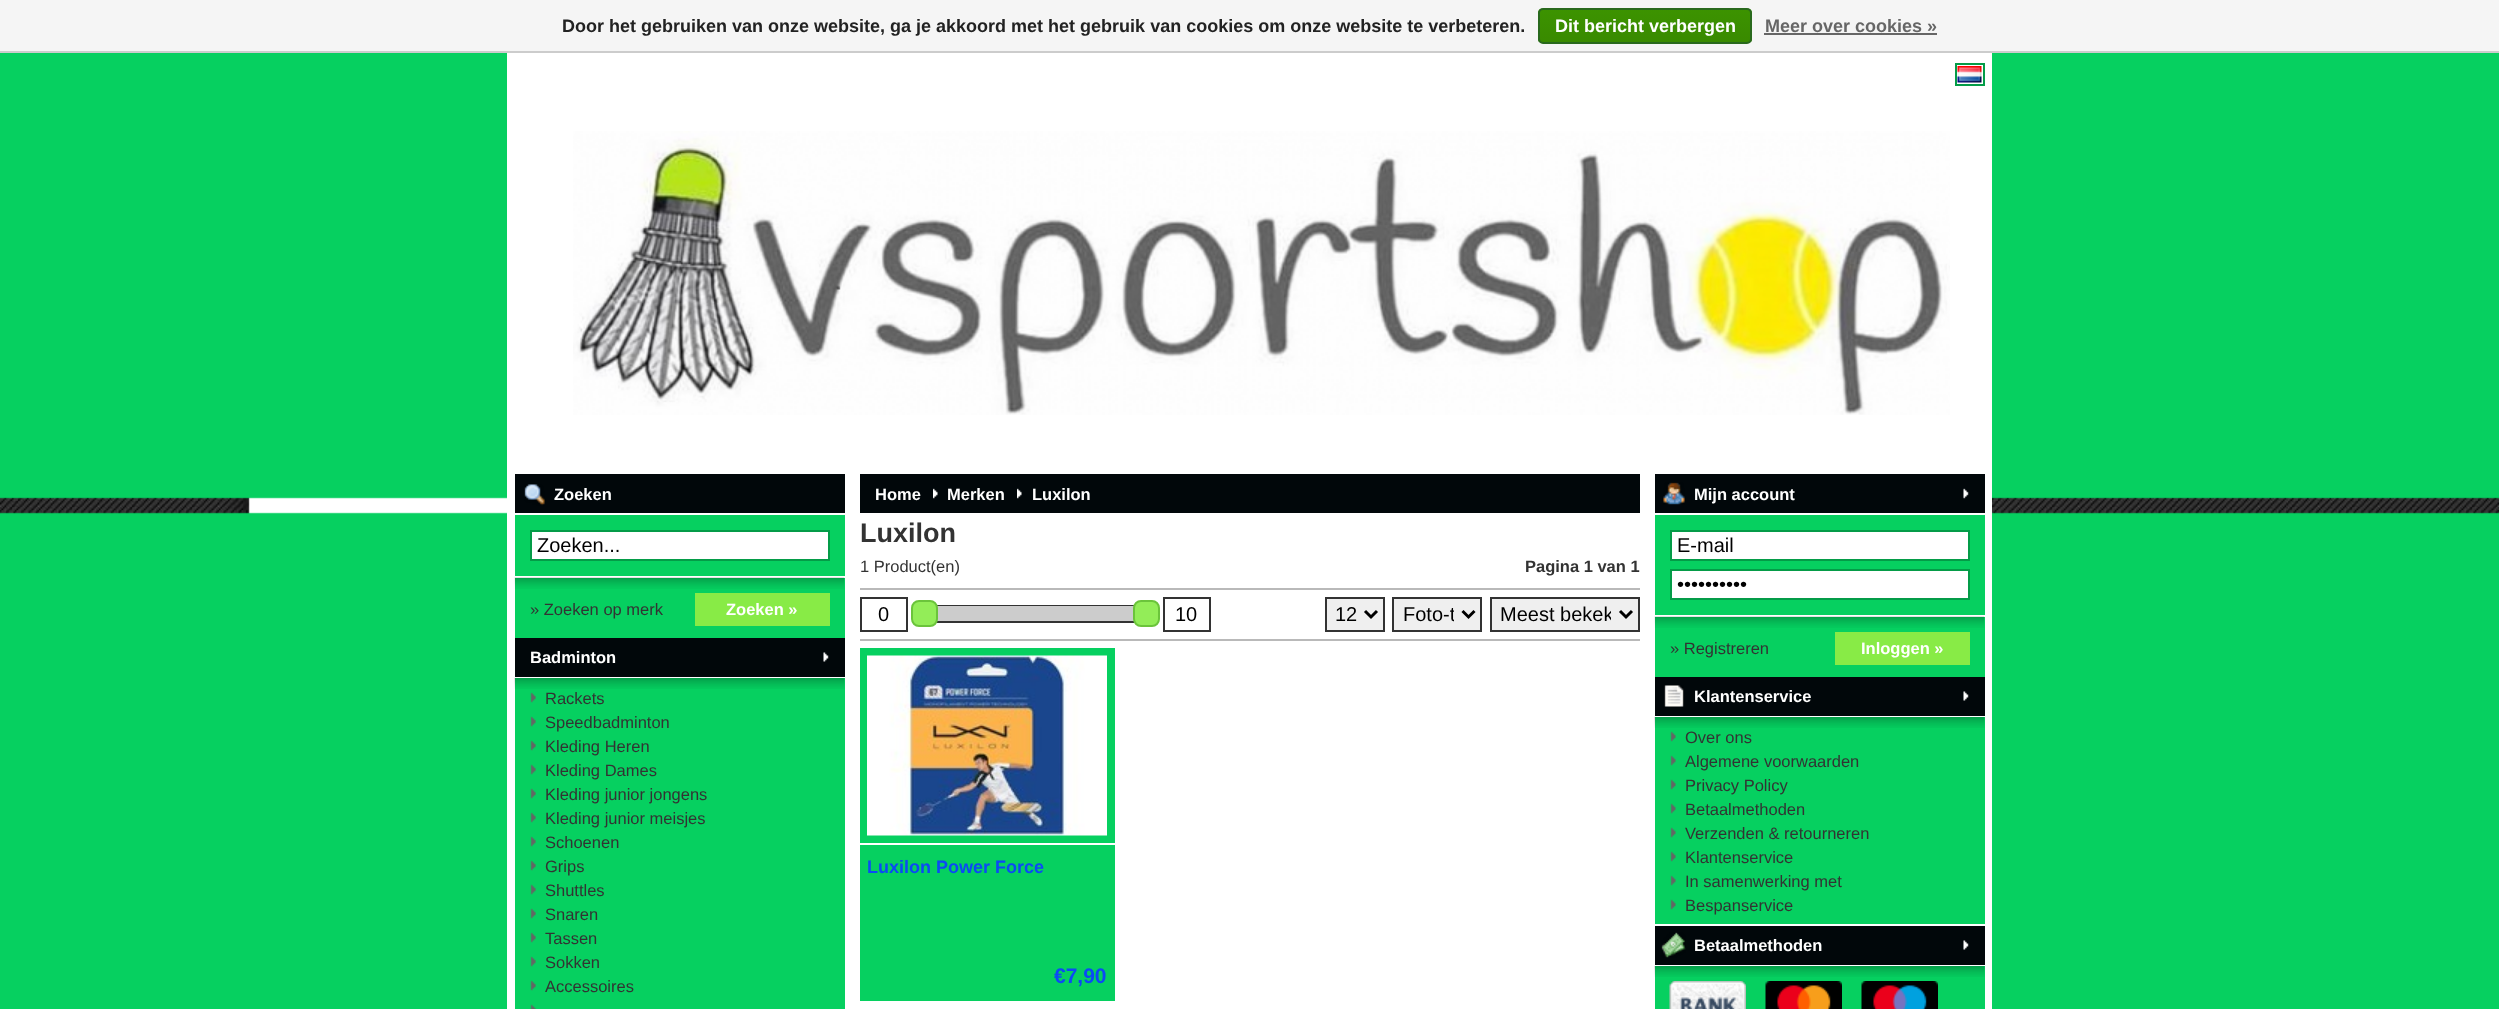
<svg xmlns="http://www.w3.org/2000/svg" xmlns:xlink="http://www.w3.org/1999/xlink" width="2499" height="1009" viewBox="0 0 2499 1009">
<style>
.cls-1{font:bold 18px Liberation Sans;fill:#222222}
.cls-2{font:bold 18px Liberation Sans;fill:#ffffff}
.cls-3{font:bold 18px Liberation Sans;fill:#666666}
.cls-4{font:bold 16.5px Liberation Sans;fill:#ffffff}
.cls-5{font:20px Liberation Sans;fill:#000000}
.cls-6{font:16.5px Liberation Sans;fill:#333333}
.cls-7{font:bold 27px Liberation Sans;fill:#333333}
.cls-8{font:bold 16.5px Liberation Sans;fill:#333333}
.cls-9{font:bold 18px Liberation Sans;fill:#0c4af5}
.cls-10{font:bold 21px Liberation Sans;fill:#0c4af5}
</style>
<defs>
<clipPath id="clip1"><rect x="1538" y="8" width="214" height="36" rx="5"/></clipPath>
<linearGradient id="g1" gradientUnits="userSpaceOnUse" x1="1645" y1="9" x2="1645" y2="42"><stop offset="0" stop-color="#3c9300"/><stop offset="1" stop-color="#398a00"/></linearGradient>
<clipPath id="clip2"><rect x="1403" y="602" width="51" height="25"/></clipPath>
<clipPath id="clip3"><rect x="1500" y="602" width="111" height="25"/></clipPath>
</defs>
<rect width="100%" height="100%" fill="#06d060"/>
<image xlink:href="image0.png" x="0" y="497" width="2499" height="17"/>
<rect fill="#f5f5f5" x="0" y="0" width="2499" height="51"/>
<rect fill="#cccccc" x="0" y="51" width="2499" height="2"/>
<g clip-path="url(#clip1)">
<rect fill="url(#g1)" x="1538" y="9" width="214" height="33"/>
</g>
<rect fill="none" stroke="#29691d" stroke-width="2" x="1539" y="9" width="212" height="34" rx="4"/>
<rect fill="#666666" x="1764" y="33" width="173" height="2"/>
<rect fill="#ffffff" x="507" y="53" width="1485" height="956"/>
<image xlink:href="image1.png" x="573" y="131" width="1377" height="284"/>
<rect fill="none" stroke="#049c48" stroke-width="2" x="1956" y="64" width="28" height="21"/>
<image xlink:href="image2.png" x="1957" y="66" width="25" height="17"/>
<rect fill="#01070a" x="515" y="474" width="330" height="39"/>
<image xlink:href="image3.png" x="524" y="484" width="21" height="22"/>
<rect fill="#06d060" x="515" y="515" width="330" height="123"/>
<rect fill="#ffffff" x="515" y="576" width="330" height="2"/>
<rect fill="#ffffff" stroke="#049c48" stroke-width="2" x="531" y="531" width="298" height="29"/>
<image xlink:href="image4.png" x="514" y="577" width="331" height="12"/>
<rect fill="#88eb46" x="695" y="593" width="135" height="33"/>
<rect fill="#01070a" x="515" y="638" width="330" height="39"/>
<image xlink:href="image5.png" x="823" y="652" width="6" height="10"/>
<rect fill="#06d060" x="515" y="678" width="330" height="331"/>
<image xlink:href="image6.png" x="514" y="678" width="331" height="11"/>
<image xlink:href="image7.png" x="530" y="692" width="6" height="11"/>
<image xlink:href="image7.png" x="530" y="716" width="6" height="11"/>
<image xlink:href="image7.png" x="530" y="740" width="6" height="11"/>
<image xlink:href="image7.png" x="530" y="764" width="6" height="11"/>
<image xlink:href="image7.png" x="530" y="788" width="6" height="11"/>
<image xlink:href="image7.png" x="530" y="812" width="6" height="11"/>
<image xlink:href="image7.png" x="530" y="836" width="6" height="11"/>
<image xlink:href="image7.png" x="530" y="860" width="6" height="11"/>
<image xlink:href="image7.png" x="530" y="884" width="6" height="11"/>
<image xlink:href="image7.png" x="530" y="908" width="6" height="11"/>
<image xlink:href="image7.png" x="530" y="932" width="6" height="11"/>
<image xlink:href="image7.png" x="530" y="956" width="6" height="11"/>
<image xlink:href="image7.png" x="530" y="980" width="6" height="11"/>
<image xlink:href="image8.png" x="530" y="1004" width="6" height="5"/>
<rect fill="#01070a" x="860" y="474" width="780" height="39"/>
<image xlink:href="image9.png" x="933" y="488" width="5" height="11"/>
<image xlink:href="image9.png" x="1017" y="488" width="5" height="11"/>
<rect fill="#b9b9b9" x="860" y="588" width="780" height="2"/>
<rect fill="#b9b9b9" x="860" y="639" width="780" height="2"/>
<rect fill="none" stroke="#333333" stroke-width="2" x="861" y="598" width="46" height="33"/>
<rect fill="none" stroke="#333333" stroke-width="2" x="924" y="606" width="223" height="16"/>
<rect fill="#cccccc" x="937" y="606" width="197" height="15"/>
<rect fill="#93ed58" stroke="#6bc43b" stroke-width="2" x="912" y="601" width="25" height="25" rx="7"/>
<rect fill="#93ed58" stroke="#6bc43b" stroke-width="2" x="1134" y="601" width="25" height="25" rx="7"/>
<rect fill="none" stroke="#333333" stroke-width="2" x="1164" y="598" width="46" height="33"/>
<rect fill="#efefef" stroke="#333333" stroke-width="2" x="1326" y="598" width="58" height="33"/>
<path fill="none" stroke="#000000" stroke-width="3" d="M1365 611L1371 617L1377 611"/>
<rect fill="#efefef" stroke="#333333" stroke-width="2" x="1393" y="598" width="88" height="33"/>
<path fill="none" stroke="#000000" stroke-width="3" d="M1462.5 611L1468.5 617L1474.5 611"/>
<rect fill="#efefef" stroke="#333333" stroke-width="2" x="1491" y="598" width="148" height="33"/>
<path fill="none" stroke="#000000" stroke-width="3" d="M1620 611L1626 617L1632 611"/>
<rect fill="#06d060" x="860" y="648" width="255" height="353"/>
<image xlink:href="image10.png" x="867" y="655" width="240" height="181"/>
<rect fill="#ffffff" x="860" y="843" width="255" height="2"/>
<rect fill="#01070a" x="1655" y="474" width="330" height="39"/>
<image xlink:href="image11.png" x="1663" y="482" width="22" height="23"/>
<image xlink:href="image12.png" x="1963" y="488" width="6" height="11"/>
<rect fill="#06d060" x="1655" y="515" width="330" height="162"/>
<rect fill="#ffffff" x="1655" y="615" width="330" height="2"/>
<rect fill="#ffffff" stroke="#049c48" stroke-width="2" x="1671" y="531" width="298" height="29"/>
<rect fill="#ffffff" stroke="#049c48" stroke-width="2" x="1671" y="570" width="298" height="29"/>
<image xlink:href="image4.png" x="1654" y="616" width="331" height="12"/>
<rect fill="#88eb46" x="1835" y="632" width="135" height="33"/>
<rect fill="#01070a" x="1655" y="677" width="330" height="39"/>
<image xlink:href="image13.png" x="1664" y="685" width="20" height="22"/>
<image xlink:href="image14.png" x="1963" y="691" width="6" height="10"/>
<rect fill="#06d060" x="1655" y="717" width="330" height="207"/>
<image xlink:href="image6.png" x="1654" y="717" width="331" height="11"/>
<image xlink:href="image15.png" x="1670" y="731" width="6" height="11"/>
<image xlink:href="image15.png" x="1670" y="755" width="6" height="11"/>
<image xlink:href="image15.png" x="1670" y="779" width="6" height="11"/>
<image xlink:href="image15.png" x="1670" y="803" width="6" height="11"/>
<image xlink:href="image15.png" x="1670" y="827" width="6" height="11"/>
<image xlink:href="image15.png" x="1670" y="851" width="6" height="11"/>
<image xlink:href="image15.png" x="1670" y="875" width="6" height="11"/>
<image xlink:href="image15.png" x="1670" y="899" width="6" height="11"/>
<rect fill="#01070a" x="1655" y="926" width="330" height="39"/>
<image xlink:href="image16.png" x="1661" y="932" width="25" height="26"/>
<image xlink:href="image14.png" x="1963" y="940" width="6" height="10"/>
<rect fill="#06d060" x="1655" y="966" width="330" height="43"/>
<image xlink:href="image6.png" x="1654" y="966" width="331" height="11"/>
<image xlink:href="image17.png" x="1669" y="981" width="77" height="28"/>
<image xlink:href="image18.png" x="1765" y="981" width="77" height="28"/>
<image xlink:href="image19.png" x="1861" y="981" width="77" height="28"/>
<text class="cls-1" x="562" y="32">Door het gebruiken van onze website, ga je akkoord met het gebruik van cookies om onze website te verbeteren.</text>
<text class="cls-2" x="1555" y="32">Dit bericht verbergen</text>
<text class="cls-3" x="1765" y="32">Meer over cookies »</text>
<text class="cls-4" x="554" y="500">Zoeken</text>
<text class="cls-5" x="537" y="552">Zoeken...</text>
<text class="cls-6" x="530" y="615">» Zoeken op merk</text>
<text class="cls-4" x="726" y="615">Zoeken »</text>
<text class="cls-4" x="530" y="663">Badminton</text>
<text class="cls-6"><tspan x="545" y="704">Rackets</tspan><tspan x="545" y="728">Speedbadminton</tspan><tspan x="545" y="752">Kleding Heren</tspan><tspan x="545" y="776">Kleding Dames</tspan><tspan x="545" y="800">Kleding junior jongens</tspan><tspan x="545" y="824">Kleding junior meisjes</tspan><tspan x="545" y="848">Schoenen</tspan><tspan x="545" y="872">Grips</tspan><tspan x="545" y="896">Shuttles</tspan><tspan x="545" y="920">Snaren</tspan><tspan x="545" y="944">Tassen</tspan><tspan x="545" y="968">Sokken</tspan><tspan x="545" y="992">Accessoires</tspan></text>
<text class="cls-4" x="875" y="500">Home</text>
<text class="cls-4" x="947" y="500">Merken</text>
<text class="cls-4" x="1032" y="500">Luxilon</text>
<text class="cls-7" x="860" y="542">Luxilon</text>
<text class="cls-6" x="860" y="572">1 Product(en)</text>
<text class="cls-8" x="1525" y="572">Pagina 1 van 1</text>
<text class="cls-5" x="878" y="621">0</text>
<text class="cls-5" x="1175" y="621">10</text>
<text class="cls-5" x="1335" y="621">12</text>
<g clip-path="url(#clip2)">
<text class="cls-5" x="1403" y="621">Foto-t</text>
</g>
<g clip-path="url(#clip3)">
<text class="cls-5" x="1500" y="621">Meest bekek</text>
</g>
<text class="cls-9" x="867" y="873">Luxilon Power Force</text>
<text class="cls-10" x="1054" y="983">€7,90</text>
<text class="cls-4" x="1694" y="500">Mijn account</text>
<text class="cls-5"><tspan x="1677" y="552">E-mail</tspan><tspan x="1677" y="591">••••••••••</tspan></text>
<text class="cls-6" x="1670" y="654">» Registreren</text>
<text class="cls-4" x="1861" y="654">Inloggen »</text>
<text class="cls-4" x="1694" y="702">Klantenservice</text>
<text class="cls-6"><tspan x="1685" y="743">Over ons</tspan><tspan x="1685" y="767">Algemene voorwaarden</tspan><tspan x="1685" y="791">Privacy Policy</tspan><tspan x="1685" y="815">Betaalmethoden</tspan><tspan x="1685" y="839">Verzenden &amp; retourneren</tspan><tspan x="1685" y="863">Klantenservice</tspan><tspan x="1685" y="887">In samenwerking met</tspan><tspan x="1685" y="911">Bespanservice</tspan></text>
<text class="cls-4" x="1694" y="951">Betaalmethoden</text>
</svg>
